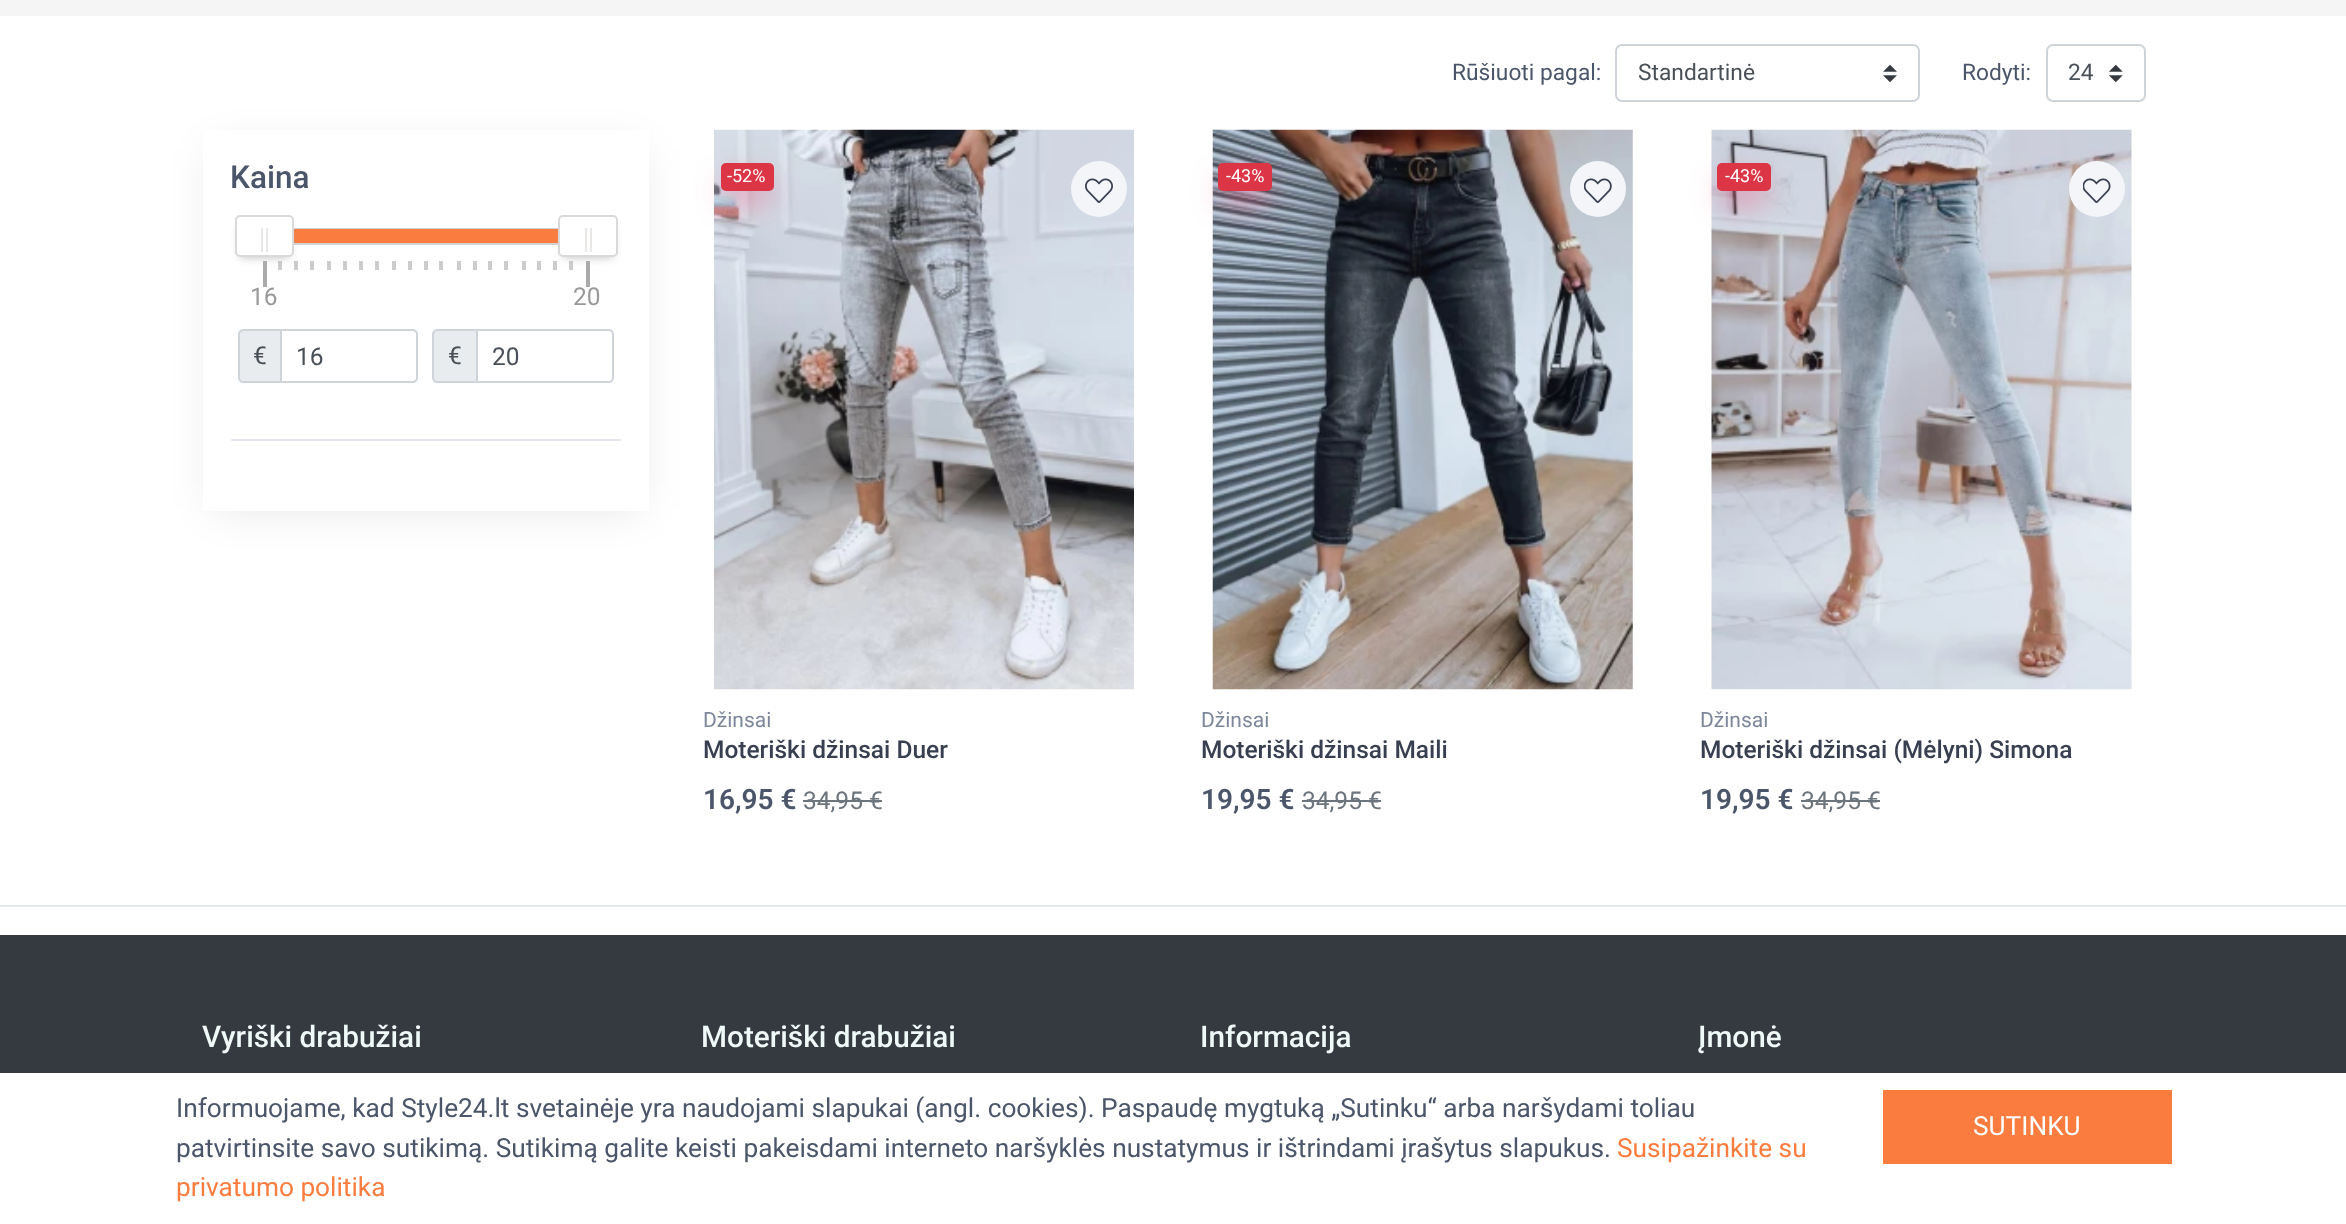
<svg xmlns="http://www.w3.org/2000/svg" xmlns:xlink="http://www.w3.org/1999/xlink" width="2346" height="1224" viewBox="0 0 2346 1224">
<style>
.cls-1{font:22.75px Roboto;fill:#4b566b}
.cls-2{font:22.75px Roboto;fill:#495057}
.cls-3{font:500 31.5px Roboto;fill:#4b566b}
.cls-4{font:24.5px Roboto;fill:#999999}
.cls-5{font:24.5px Roboto;fill:#495057}
.cls-6{font:18px Roboto;fill:#ffffff}
.cls-7{font:21px Roboto;fill:#7d879c}
.cls-8{font:500 24.5px Roboto;fill:#373f50}
.cls-9{font:600 28px Roboto;fill:#4b566b}
.cls-10{font:24.5px Roboto;fill:#6c757d}
.cls-11{font:500 29.75px Roboto;fill:#eff9f8}
.cls-12{font:26.25px Roboto;fill:#4b566b}
.cls-13{font:26.25px Roboto;fill:#fa7c3e}
.cls-14{font:26.25px Roboto;fill:#ffffff}
</style>
<defs>
<clipPath id="clip1"><path d="M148 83H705V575H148ZM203 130H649V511H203Z" clip-rule="evenodd"/></clipPath>
</defs>
<rect width="100%" height="100%" fill="#ffffff"/>
<rect fill="#f5f5f5" x="0" y="0" width="2346" height="16"/>
<image xlink:href="image0.png" x="1883" y="65" width="14" height="17"/>
<rect fill="none" stroke="#ced4da" stroke-width="2" x="1616" y="45" width="303" height="56" rx="6"/>
<image xlink:href="image1.png" x="2109" y="65" width="14" height="17"/>
<rect fill="none" stroke="#ced4da" stroke-width="2" x="2047" y="45" width="98" height="56" rx="6"/>
<g clip-path="url(#clip1)">
<rect fill="#000000" fill-opacity="0.1" filter="blur(21.5px)" x="214" y="149" width="425" height="360"/>
</g>
<rect fill="#e3e9ef" x="231" y="439" width="390" height="2"/>
<rect fill="none" stroke="#d3d3d3" stroke-width="2" x="264" y="229" width="325" height="15"/>
<rect fill="#fa7c3e" x="294" y="229" width="264" height="14"/>
<rect fill="#aaaaaa" x="263" y="261" width="4" height="26"/>
<rect fill="#cccccc" x="278" y="261" width="4" height="9"/>
<rect fill="#cccccc" x="294" y="261" width="4" height="9"/>
<rect fill="#bbbbbb" filter="blur(5px)" x="240" y="226" width="49" height="31"/>
<rect fill="#ffffff" stroke="#d9d9d9" stroke-width="2" x="236" y="216" width="57" height="40" rx="4"/>
<rect fill="#e8e7e6" x="261" y="228" width="2" height="24"/>
<rect fill="#e8e7e6" x="266" y="228" width="2" height="24"/>
<rect fill="#cccccc" x="553" y="261" width="4" height="9"/>
<rect fill="#cccccc" x="569" y="261" width="4" height="9"/>
<rect fill="#aaaaaa" x="586" y="261" width="4" height="26"/>
<rect fill="#bbbbbb" filter="blur(5px)" x="564" y="226" width="49" height="31"/>
<rect fill="#ffffff" stroke="#d9d9d9" stroke-width="2" x="559" y="216" width="58" height="40" rx="4"/>
<rect fill="#e8e7e6" x="585" y="228" width="2" height="24"/>
<rect fill="#e8e7e6" x="590" y="228" width="2" height="24"/>
<rect fill="#cccccc" x="310" y="261" width="4" height="9"/>
<rect fill="#cccccc" x="327" y="261" width="4" height="9"/>
<rect fill="#cccccc" x="343" y="261" width="4" height="9"/>
<rect fill="#cccccc" x="359" y="261" width="4" height="9"/>
<rect fill="#cccccc" x="375" y="261" width="4" height="9"/>
<rect fill="#cccccc" x="392" y="261" width="4" height="9"/>
<rect fill="#cccccc" x="408" y="261" width="4" height="9"/>
<rect fill="#cccccc" x="424" y="261" width="4" height="9"/>
<rect fill="#cccccc" x="439" y="261" width="4" height="9"/>
<rect fill="#cccccc" x="457" y="261" width="4" height="9"/>
<rect fill="#cccccc" x="473" y="261" width="4" height="9"/>
<rect fill="#cccccc" x="488" y="261" width="4" height="9"/>
<rect fill="#cccccc" x="504" y="261" width="4" height="9"/>
<rect fill="#cccccc" x="522" y="261" width="4" height="9"/>
<rect fill="#cccccc" x="537" y="261" width="4" height="9"/>
<path fill="#e9ecef" stroke="#ced4da" stroke-width="2" d="M243 330H281V382H243C241 382 239 380 239 378V334C239 332 241 330 243 330Z"/>
<path fill="none" stroke="#ced4da" stroke-width="2" d="M281 330H413C415 330 417 332 417 334V378C417 380 415 382 413 382H281Z"/>
<path fill="#e9ecef" stroke="#ced4da" stroke-width="2" d="M437 330H477V382H437C435 382 433 380 433 378V334C433 332 435 330 437 330Z"/>
<path fill="none" stroke="#ced4da" stroke-width="2" d="M477 330H609C611 330 613 332 613 334V378C613 380 611 382 609 382H477Z"/>
<image xlink:href="image2.png" x="714" y="129" width="420" height="561"/>
<rect fill="#f34770" fill-opacity="0.9" filter="blur(16px)" x="728" y="184" width="39" height="14"/>
<rect fill="#dc3545" x="721" y="163" width="53" height="28" rx="5"/>
<circle fill="#f3f5f9" cx="1099" cy="189" r="28"/>
<image xlink:href="image3.png" x="1085" y="178" width="28" height="25"/>
<rect fill="#6c757d" x="803" y="800" width="79" height="2"/>
<image xlink:href="image4.png" x="1212" y="129" width="421" height="561"/>
<rect fill="#f34770" fill-opacity="0.9" filter="blur(16px)" x="1225" y="184" width="40" height="14"/>
<rect fill="#dc3545" x="1218" y="163" width="54" height="28" rx="5"/>
<circle fill="#f3f5f9" cx="1598" cy="189" r="28"/>
<image xlink:href="image5.png" x="1584" y="178" width="28" height="25"/>
<rect fill="#6c757d" x="1302" y="800" width="79" height="2"/>
<image xlink:href="image6.png" x="1711" y="129" width="421" height="561"/>
<rect fill="#f34770" fill-opacity="0.9" filter="blur(16px)" x="1724" y="184" width="40" height="14"/>
<rect fill="#dc3545" x="1717" y="163" width="54" height="28" rx="5"/>
<circle fill="#f3f5f9" cx="2097" cy="189" r="28"/>
<image xlink:href="image7.png" x="2083" y="178" width="28" height="25"/>
<rect fill="#6c757d" x="1801" y="800" width="79" height="2"/>
<rect fill="#e3e9ef" x="0" y="905" width="2346" height="2"/>
<rect fill="#343a40" x="0" y="935" width="2346" height="138"/>
<rect fill="#fa7c3e" x="1883" y="1090" width="289" height="74"/>
<text class="cls-1" x="1452" y="80">Rūšiuoti pagal:</text>
<text class="cls-2" x="1638" y="80">Standartinė</text>
<text class="cls-1" x="1962" y="80">Rodyti:</text>
<text class="cls-2" x="2068" y="80">24</text>
<text class="cls-3" x="230" y="188">Kaina</text>
<text class="cls-4" x="250" y="305">16</text>
<text class="cls-4" x="573" y="305">20</text>
<text class="cls-5" x="253" y="364">€</text>
<text class="cls-5" x="296" y="365">16</text>
<text class="cls-5" x="448" y="364">€</text>
<text class="cls-5" x="492" y="365">20</text>
<text class="cls-6" x="727" y="182">-52%</text>
<text class="cls-7" x="703" y="727">Džinsai</text>
<text class="cls-8" x="703" y="758">Moteriški džinsai Duer</text>
<text class="cls-9" x="703" y="809">16,95 €</text>
<text class="cls-10" x="803" y="809">34,95 €</text>
<text class="cls-6" x="1226" y="182">-43%</text>
<text class="cls-7" x="1201" y="727">Džinsai</text>
<text class="cls-8" x="1201" y="758">Moteriški džinsai Maili</text>
<text class="cls-9" x="1201" y="809">19,95 €</text>
<text class="cls-10" x="1302" y="809">34,95 €</text>
<text class="cls-6" x="1725" y="182">-43%</text>
<text class="cls-7" x="1700" y="727">Džinsai</text>
<text class="cls-8" x="1700" y="758">Moteriški džinsai (Mėlyni) Simona</text>
<text class="cls-9" x="1700" y="809">19,95 €</text>
<text class="cls-10" x="1801" y="809">34,95 €</text>
<text class="cls-11" x="202" y="1047">Vyriški drabužiai</text>
<text class="cls-11" x="701" y="1047">Moteriški drabužiai</text>
<text class="cls-11" x="1200" y="1047">Informacija</text>
<text class="cls-11" x="1698" y="1047">Įmonė</text>
<text class="cls-12"><tspan x="176" y="1117">Informuojame, kad Style24.lt svetainėje yra naudojami slapukai (angl. cookies). Paspaudę mygtuką „Sutinku“ arba naršydami toliau</tspan><tspan x="176" y="1157">patvirtinsite savo sutikimą. Sutikimą galite keisti pakeisdami interneto naršyklės nustatymus ir ištrindami įrašytus slapukus.</tspan></text>
<text class="cls-13" x="1617" y="1157">Susipažinkite su</text>
<text class="cls-13" x="176" y="1196">privatumo politika</text>
<text class="cls-14" x="1973" y="1135">SUTINKU</text>
</svg>
